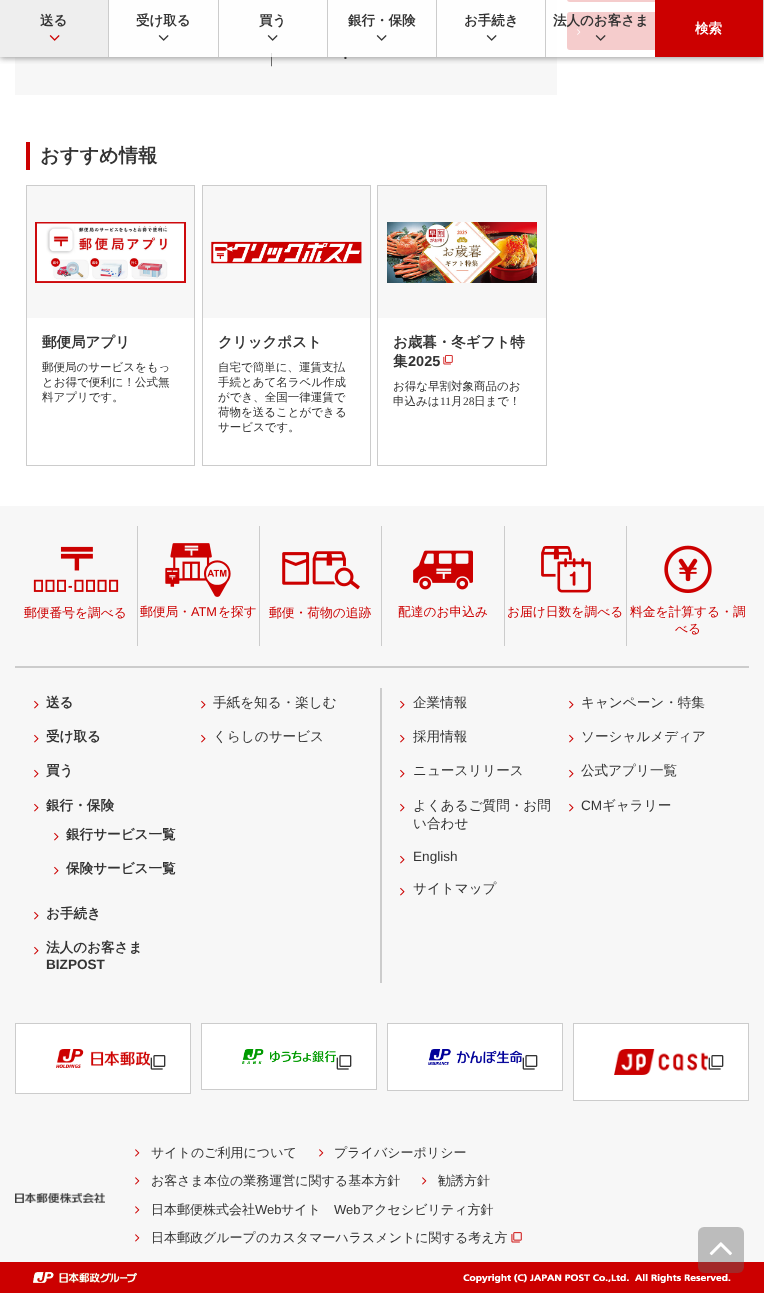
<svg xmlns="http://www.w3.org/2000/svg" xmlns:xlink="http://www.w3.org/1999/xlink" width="764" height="1293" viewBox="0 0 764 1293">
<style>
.cls-1{font:bold 13.5px WenQuanYi Zen Hei;fill:#333333}
.cls-2{font:bold 13.5px WenQuanYi Zen Hei;fill:#ffffff}
.cls-3{font:14.5px Liberation Serif;fill:#333333}
.cls-4{font:500 14.5px WenQuanYi Zen Hei;fill:#333333}
.cls-5{font:bold 19.25px WenQuanYi Zen Hei;fill:#333333}
.cls-6{font:bold 14.5px WenQuanYi Zen Hei;fill:#333333}
.cls-7{font:500 11.5px WenQuanYi Zen Hei;fill:#333333}
.cls-8{font:bold 14.5px Liberation Sans;fill:#333333}
.cls-9{font:11.5px Liberation Serif;fill:#333333}
.cls-10{font:500 12.75px WenQuanYi Zen Hei;fill:#cc0000}
.cls-11{font:12.75px Liberation Sans;fill:#cc0000}
.cls-12{font:bold 13.6px WenQuanYi Zen Hei;fill:#333333}
.cls-13{font:bold 13.6px Liberation Sans;fill:#333333}
.cls-14{font:500 13.6px WenQuanYi Zen Hei;fill:#333333}
.cls-15{font:13.6px Liberation Sans;fill:#333333}
.cls-16{font:500 13px WenQuanYi Zen Hei;fill:#333333}
.cls-17{font:13px Liberation Sans;fill:#333333}
</style>
<defs>
<clipPath id="clip1"><rect x="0" y="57" width="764" height="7"/></clipPath>
</defs>
<rect width="100%" height="100%" fill="#ffffff"/>
<rect fill="#cc0000" x="567" y="-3" width="182" height="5" rx="3"/>
<rect fill="#cc0000" x="567" y="12" width="182" height="38" rx="3"/>
<image xlink:href="image3.png" x="577" y="29" width="4" height="6"/>
<rect fill="#f7f7f7" x="15" y="0" width="542" height="95"/>
<g clip-path="url(#clip1)">
<rect fill="#949494" filter="blur(3px)" x="0" y="1" width="764" height="57"/>
</g>
<rect fill="#eeeeee" x="0" y="0" width="108" height="57"/>
<rect fill="#cccccc" x="108" y="0" width="1" height="57"/>
<image xlink:href="image0.png" x="49" y="35" width="11" height="6"/>
<rect fill="#ffffff" fill-opacity="0.8" x="109" y="0" width="109" height="57"/>
<rect fill="#cccccc" x="218" y="0" width="1" height="57"/>
<image xlink:href="image1.png" x="158" y="35" width="11" height="6"/>
<rect fill="#cccccc" x="327" y="0" width="1" height="57"/>
<rect fill="#cccccc" x="436" y="0" width="1" height="57"/>
<rect fill="#ffffff" fill-opacity="0.8" x="437" y="0" width="108" height="57"/>
<rect fill="#cccccc" x="545" y="0" width="1" height="57"/>
<image xlink:href="image1.png" x="486" y="35" width="11" height="6"/>
<rect fill="#ffffff" fill-opacity="0.8" x="546" y="0" width="109" height="57"/>
<image xlink:href="image2.png" x="595" y="35" width="11" height="6"/>
<rect fill="#cc0000" x="655" y="0" width="108" height="57"/>
<rect fill="#cccccc" x="763" y="0" width="1" height="57"/>
<rect fill="#cc0000" x="26" y="142" width="4" height="28"/>
<rect fill="none" stroke="#cccccc" x="26.5" y="185.5" width="168" height="280"/>
<rect fill="#f7f7f7" x="27" y="186" width="167" height="132"/>
<image xlink:href="image4.png" x="35" y="222" width="151" height="61"/>
<rect fill="none" stroke="#cccccc" x="202.5" y="185.5" width="168" height="280"/>
<rect fill="#f7f7f7" x="203" y="186" width="167" height="132"/>
<image xlink:href="image5.png" x="211" y="241" width="151" height="23"/>
<rect fill="none" stroke="#cccccc" x="377.5" y="185.5" width="169" height="280"/>
<rect fill="#f7f7f7" x="378" y="186" width="168" height="132"/>
<image xlink:href="image6.png" x="387" y="222" width="150" height="61"/>
<image xlink:href="image7.png" x="443" y="355" width="10" height="10"/>
<rect fill="#f7f7f7" x="0" y="506" width="764" height="756"/>
<rect fill="#cccccc" x="15" y="666" width="734" height="2"/>
<rect fill="#cccccc" x="137" y="526" width="1" height="120"/>
<image xlink:href="image8.png" x="33" y="546" width="86" height="46"/>
<rect fill="#cccccc" x="259" y="526" width="1" height="120"/>
<image xlink:href="image9.png" x="165" y="543" width="66" height="54"/>
<rect fill="#cccccc" x="381" y="526" width="1" height="120"/>
<image xlink:href="image10.png" x="282" y="551" width="78" height="39"/>
<rect fill="#cccccc" x="504" y="526" width="1" height="120"/>
<image xlink:href="image11.png" x="413" y="550" width="60" height="40"/>
<rect fill="#cccccc" x="626" y="526" width="1" height="120"/>
<image xlink:href="image12.png" x="541" y="546" width="50" height="47"/>
<image xlink:href="image13.png" x="664" y="545" width="48" height="48"/>
<rect fill="#cccccc" x="380" y="688" width="2" height="295"/>
<image xlink:href="image14.png" x="34" y="700" width="5" height="9"/>
<image xlink:href="image14.png" x="34" y="734" width="5" height="9"/>
<image xlink:href="image14.png" x="34" y="769" width="5" height="9"/>
<image xlink:href="image14.png" x="34" y="803" width="5" height="9"/>
<image xlink:href="image14.png" x="54" y="832" width="5" height="9"/>
<image xlink:href="image14.png" x="54" y="866" width="5" height="9"/>
<image xlink:href="image14.png" x="34" y="911" width="5" height="9"/>
<image xlink:href="image14.png" x="34" y="946" width="5" height="9"/>
<image xlink:href="image14.png" x="201" y="700" width="5" height="9"/>
<image xlink:href="image14.png" x="201" y="734" width="5" height="9"/>
<image xlink:href="image14.png" x="400" y="700" width="5" height="9"/>
<image xlink:href="image14.png" x="400" y="734" width="5" height="9"/>
<image xlink:href="image14.png" x="400" y="769" width="5" height="9"/>
<image xlink:href="image14.png" x="400" y="803" width="5" height="9"/>
<image xlink:href="image14.png" x="400" y="855" width="5" height="9"/>
<image xlink:href="image14.png" x="400" y="887" width="5" height="9"/>
<image xlink:href="image14.png" x="569" y="700" width="5" height="9"/>
<image xlink:href="image14.png" x="569" y="734" width="5" height="9"/>
<image xlink:href="image14.png" x="569" y="769" width="5" height="9"/>
<image xlink:href="image14.png" x="569" y="803" width="5" height="9"/>
<rect fill="#ffffff" stroke="#cccccc" x="15.5" y="1023.5" width="175" height="70"/>
<image xlink:href="image15.png" x="56" y="1049" width="94" height="19"/>
<image xlink:href="image16.png" x="150" y="1055" width="16" height="15"/>
<rect fill="#ffffff" stroke="#cccccc" x="201.5" y="1023.5" width="175" height="66"/>
<image xlink:href="image17.png" x="242" y="1049" width="94" height="15"/>
<image xlink:href="image16.png" x="336" y="1055" width="16" height="15"/>
<rect fill="#ffffff" stroke="#cccccc" x="387.5" y="1023.5" width="175" height="67"/>
<image xlink:href="image18.png" x="428" y="1049" width="94" height="16"/>
<image xlink:href="image16.png" x="522" y="1055" width="16" height="15"/>
<rect fill="#ffffff" stroke="#cccccc" x="573.5" y="1023.5" width="175" height="77"/>
<image xlink:href="image19.png" x="614" y="1049" width="94" height="26"/>
<image xlink:href="image16.png" x="708" y="1055" width="16" height="15"/>
<image xlink:href="image20.png" x="15" y="1193" width="90" height="10"/>
<image xlink:href="image21.png" x="135" y="1149" width="5" height="8"/>
<image xlink:href="image21.png" x="319" y="1149" width="5" height="8"/>
<image xlink:href="image21.png" x="135" y="1177" width="5" height="8"/>
<image xlink:href="image21.png" x="422" y="1177" width="5" height="8"/>
<image xlink:href="image21.png" x="135" y="1206" width="5" height="8"/>
<image xlink:href="image21.png" x="135" y="1234" width="5" height="8"/>
<image xlink:href="image22.png" x="511" y="1232" width="11" height="11"/>
<rect fill="#cc0000" x="0" y="1262" width="764" height="31"/>
<image xlink:href="image23.png" x="33" y="1272" width="104" height="11"/>
<image xlink:href="image24.png" x="463" y="1274" width="268" height="9"/>
<rect fill="#646464" fill-opacity="0.4" x="698" y="1227" width="46" height="46" rx="6"/>
<image xlink:href="image25.png" x="709" y="1242" width="23" height="14"/>
<text class="cls-1" x="40" y="25">送る</text>
<text class="cls-1" x="136" y="25">受け取る</text>
<text class="cls-1" x="464" y="25">お手続き</text>
<text class="cls-1" x="553" y="25">法人のお客さま</text>
<text class="cls-2" x="695" y="33">検索</text>
<text class="cls-3" x="270" y="63">|</text>
<rect fill="#ffffff" fill-opacity="0.8" x="219" y="0" width="108" height="57"/>
<image xlink:href="image1.png" x="267" y="35" width="11" height="6"/>
<text class="cls-1" x="259" y="25">買う</text>
<text class="cls-4" x="338" y="63">・</text>
<rect fill="#ffffff" fill-opacity="0.8" x="328" y="0" width="108" height="57"/>
<image xlink:href="image1.png" x="376" y="35" width="11" height="6"/>
<text class="cls-1" x="348" y="25">銀行・保険</text>
<text class="cls-5" x="40" y="162">おすすめ情報</text>
<text class="cls-6" x="42" y="347">郵便局アプリ</text>
<text class="cls-7"><tspan x="42" y="371">郵便局のサービスをもっ</tspan><tspan x="42" y="386">とお得で便利に！公式無</tspan><tspan x="42" y="401">料アプリです。</tspan></text>
<text class="cls-6" x="218" y="347">クリックポスト</text>
<text class="cls-7"><tspan x="218" y="371">自宅で簡単に、運賃支払</tspan><tspan x="218" y="386">手続とあて名ラベル作成</tspan><tspan x="218" y="401">ができ、全国一律運賃で</tspan><tspan x="218" y="416">荷物を送ることができる</tspan><tspan x="218" y="431">サービスです。</tspan></text>
<text class="cls-6"><tspan x="393" y="347">お歳暮・冬ギフト特</tspan><tspan x="393" y="366">集</tspan></text>
<text class="cls-8" x="408" y="366">2025</text>
<text class="cls-7"><tspan x="393" y="390">お得な早割対象商品のお</tspan><tspan x="393" y="405">申込みは</tspan></text>
<text class="cls-9" x="440" y="405">11</text>
<text class="cls-7" x="451" y="405">月</text>
<text class="cls-9" x="463" y="405">28</text>
<text class="cls-7" x="474" y="405">日まで！</text>
<text class="cls-10" x="24" y="617">郵便番号を調べる</text>
<text class="cls-10" x="140" y="616">郵便局・</text>
<text class="cls-11" x="191" y="616">ATM</text>
<text class="cls-10" x="218" y="616">を探す</text>
<text class="cls-10" x="269" y="617">郵便・荷物の追跡</text>
<text class="cls-10" x="398" y="616">配達のお申込み</text>
<text class="cls-10" x="507" y="616">お届け日数を調べる</text>
<text class="cls-10" x="630" y="616">料金を計算する・調</text>
<text class="cls-10" x="675" y="633">べる</text>
<text class="cls-12" x="46" y="707">送る</text>
<text class="cls-12" x="46" y="741">受け取る</text>
<text class="cls-12" x="46" y="775">買う</text>
<text class="cls-12" x="46" y="810">銀行・保険</text>
<text class="cls-12" x="66" y="839">銀行サービス一覧</text>
<text class="cls-12" x="66" y="873">保険サービス一覧</text>
<text class="cls-12" x="46" y="918">お手続き</text>
<text class="cls-12" x="46" y="952">法人のお客さま</text>
<text class="cls-13" x="46" y="969">BIZPOST</text>
<text class="cls-14" x="213" y="707">手紙を知る・楽しむ</text>
<text class="cls-14" x="213" y="741">くらしのサービス</text>
<text class="cls-14" x="413" y="707">企業情報</text>
<text class="cls-14" x="413" y="741">採用情報</text>
<text class="cls-14" x="413" y="775">ニュースリリース</text>
<text class="cls-14"><tspan x="413" y="810">よくあるご質問・お問</tspan><tspan x="413" y="828">い合わせ</tspan></text>
<text class="cls-15" x="413" y="861">English</text>
<text class="cls-14" x="413" y="893">サイトマップ</text>
<text class="cls-14" x="581" y="707">キャンペーン・特集</text>
<text class="cls-14" x="581" y="741">ソーシャルメディア</text>
<text class="cls-14" x="581" y="775">公式アプリ一覧</text>
<text class="cls-15" x="581" y="810">CM</text>
<text class="cls-14" x="602" y="810">ギャラリー</text>
<text class="cls-16" x="151" y="1157">サイトのご利用について</text>
<text class="cls-16" x="334" y="1157">プライバシーポリシー</text>
<text class="cls-16" x="151" y="1185">お客さま本位の業務運営に関する基本方針</text>
<text class="cls-16" x="438" y="1185">勧誘方針</text>
<text class="cls-16" x="151" y="1214">日本郵便株式会社</text>
<text class="cls-17" x="255" y="1214">Web</text>
<text class="cls-16" x="281" y="1214">サイト</text>
<text class="cls-17" x="334" y="1214">Web</text>
<text class="cls-16" x="361" y="1214">アクセシビリティ方針</text>
<text class="cls-16" x="151" y="1242">日本郵政グループのカスタマーハラスメントに関する考え方</text>
</svg>
